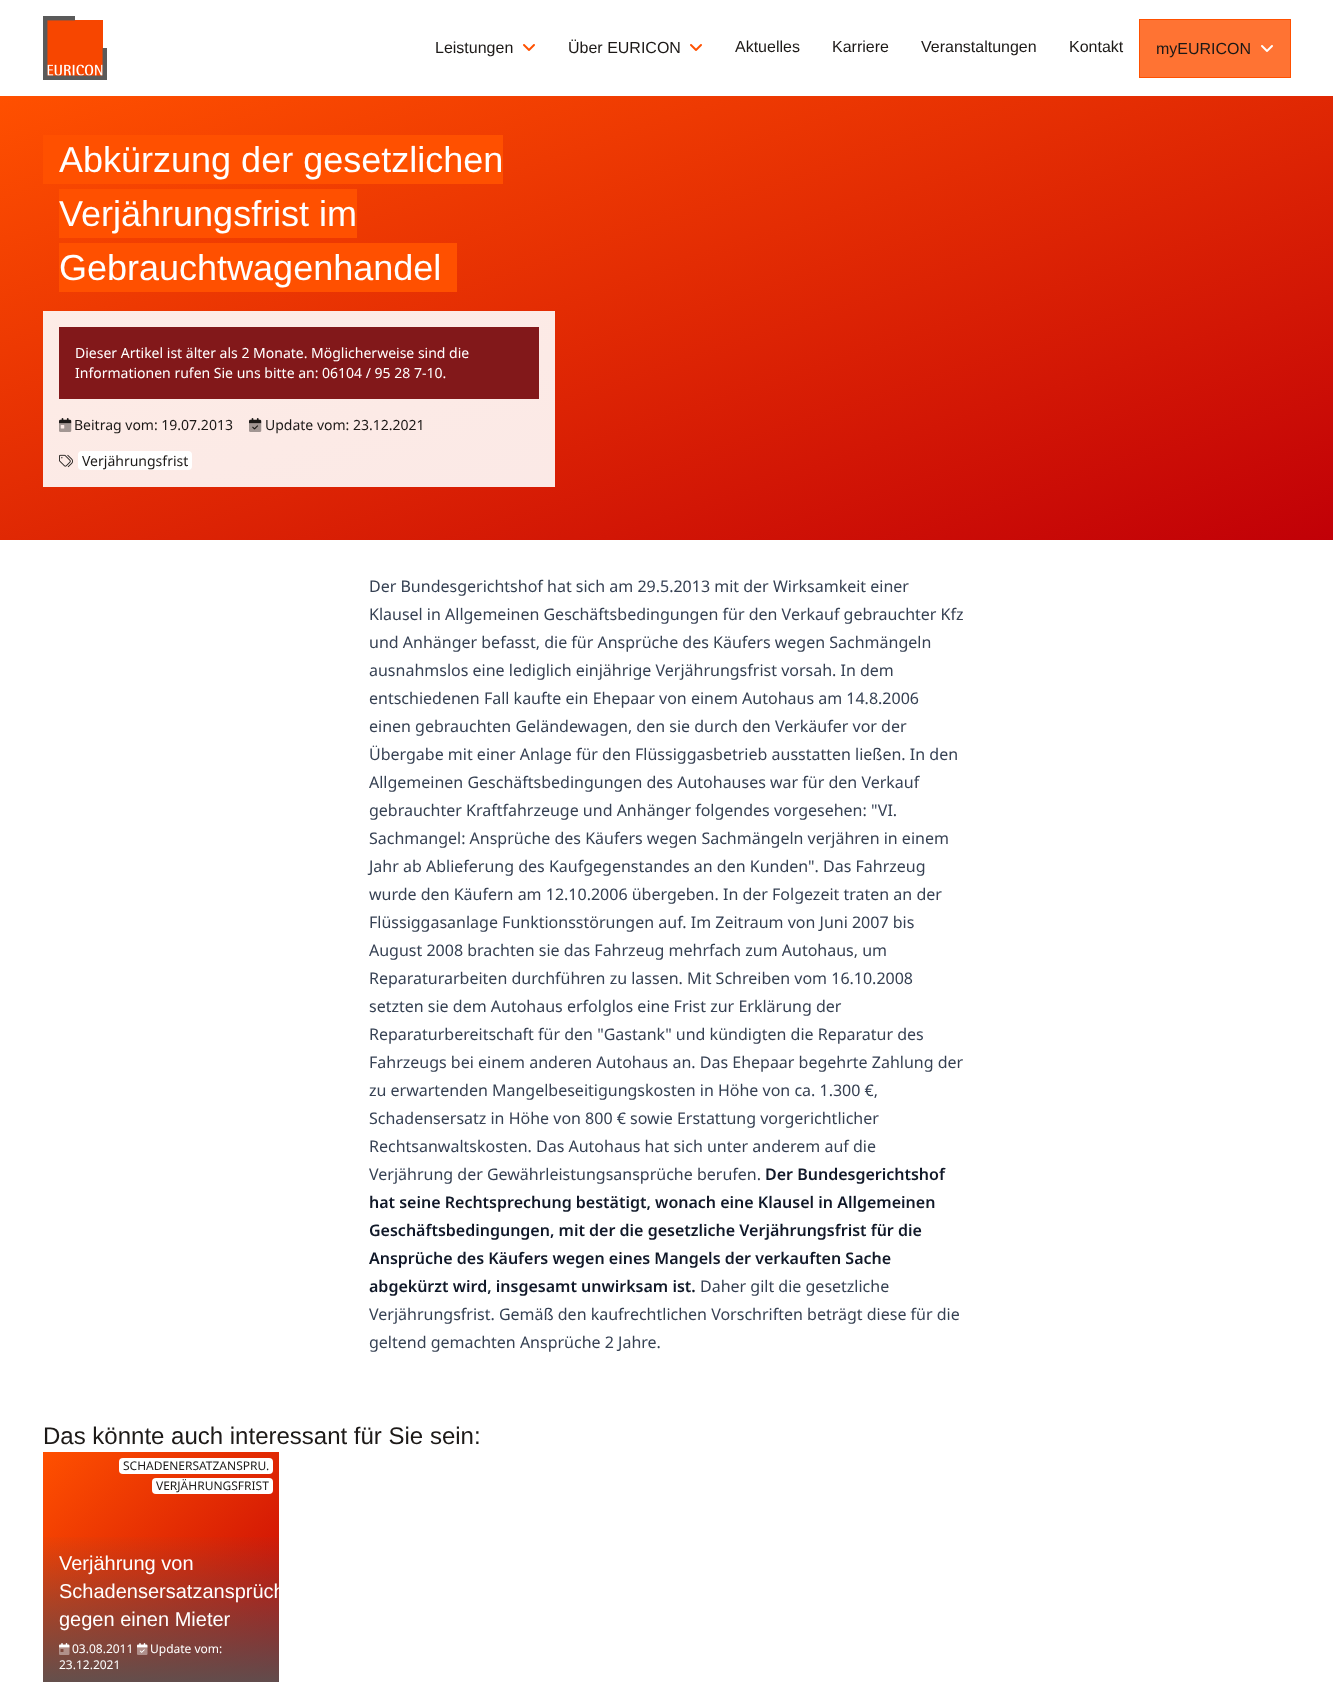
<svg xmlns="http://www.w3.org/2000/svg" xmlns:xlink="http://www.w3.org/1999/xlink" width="1333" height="1682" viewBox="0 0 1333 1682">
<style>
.cls-1{font:16px Liberation Sans;fill:#1c1917}
.cls-2{font:36px Liberation Sans;fill:#ffffff}
.cls-3{font:14px Noto Sans;fill:#ffffff}
.cls-4{font:14px Noto Sans;fill:#1c1917}
.cls-5{font:16px Noto Sans;fill:#364153}
.cls-6{font:600 16px Noto Sans;fill:#101828}
.cls-7{font:24px Liberation Sans;fill:#1c1917}
.cls-8{font:12px Noto Sans;fill:#1c1917}
.cls-9{font:20px Liberation Sans;fill:#ffffff}
.cls-10{font:12px Noto Sans;fill:#ffffff}
</style>
<defs>
<linearGradient id="g1" gradientUnits="userSpaceOnUse" x1="533" y1="-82" x2="800" y2="718"><stop offset="0" stop-color="#ff5000"/><stop offset="1" stop-color="#c10007"/></linearGradient>
<linearGradient id="g2" gradientUnits="userSpaceOnUse" x1="533" y1="-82" x2="800" y2="718"><stop offset="0" stop-color="#ffeee6"/><stop offset="1" stop-color="#f9e6e6"/></linearGradient>
<linearGradient id="g3" gradientUnits="userSpaceOnUse" x1="43" y1="1453" x2="279" y2="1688"><stop offset="0" stop-color="#ff5000"/><stop offset="1" stop-color="#c10007"/></linearGradient>
<linearGradient id="g4" gradientUnits="userSpaceOnUse" x1="161" y1="1533" x2="161" y2="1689"><stop offset="0" stop-color="#555555" stop-opacity="0"/><stop offset="1" stop-color="#555555" stop-opacity="0.93"/></linearGradient>
</defs>
<rect width="100%" height="100%" fill="#ffffff"/>
<image xlink:href="image0.png" x="43" y="16" width="64" height="64"/>
<image xlink:href="image1.png" x="523" y="44" width="12" height="7"/>
<image xlink:href="image1.png" x="690" y="44" width="12" height="7"/>
<rect fill="#ff7333" stroke="#ff5000" x="1139.5" y="19.5" width="151" height="58"/>
<image xlink:href="image2.png" x="1261" y="45" width="12" height="7"/>
<rect fill="url(#g1)" x="0" y="96" width="1333" height="444"/>
<rect fill="url(#g2)" x="43" y="311" width="512" height="176"/>
<rect fill="#ff5000" x="43" y="135" width="460" height="49"/>
<rect fill="#ff5000" x="59" y="189" width="298" height="49"/>
<rect fill="#ff5000" x="59" y="243" width="398" height="49"/>
<rect fill="#82181a" x="59" y="327" width="480" height="72"/>
<image xlink:href="image3.png" x="59" y="418" width="13" height="14"/>
<image xlink:href="image4.png" x="249" y="418" width="13" height="14"/>
<image xlink:href="image5.png" x="59" y="454" width="14" height="14"/>
<rect fill="#ffffff" x="78" y="451" width="114" height="19" rx="4"/>
<rect fill="url(#g3)" x="43" y="1452" width="236" height="230"/>
<rect fill="#ffffff" x="119" y="1458" width="154" height="16" rx="4"/>
<rect fill="#ffffff" x="152" y="1478" width="121" height="16" rx="4"/>
<rect fill="url(#g4)" x="43" y="1537" width="236" height="145"/>
<image xlink:href="image6.png" x="137" y="1643" width="11" height="12"/>
<image xlink:href="image7.png" x="59" y="1643" width="11" height="12"/>
<text class="cls-1" x="435" y="53">Leistungen</text>
<text class="cls-1" x="568" y="53">Über EURICON</text>
<text class="cls-1" x="735" y="52">Aktuelles</text>
<text class="cls-1" x="832" y="52">Karriere</text>
<text class="cls-1" x="921" y="52">Veranstaltungen</text>
<text class="cls-1" x="1069" y="52">Kontakt</text>
<text class="cls-1" x="1156" y="54">myEURICON</text>
<text class="cls-2"><tspan x="59" y="172">Abkürzung der gesetzlichen</tspan><tspan x="59" y="226">Verjährungsfrist im</tspan><tspan x="59" y="280">Gebrauchtwagenhandel</tspan></text>
<text class="cls-3"><tspan x="75" y="358">Dieser Artikel ist älter als 2 Monate. Möglicherweise sind die</tspan><tspan x="75" y="378">Informationen rufen Sie uns bitte an: 06104 / 95 28 7-10.</tspan></text>
<text class="cls-4" x="74" y="430">Beitrag vom: 19.07.2013</text>
<text class="cls-4" x="265" y="430">Update vom: 23.12.2021</text>
<text class="cls-4" x="82" y="466">Verjährungsfrist</text>
<text class="cls-5"><tspan x="369" y="592">Der Bundesgerichtshof hat sich am 29.5.2013 mit der Wirksamkeit einer</tspan><tspan x="369" y="620">Klausel in Allgemeinen Geschäftsbedingungen für den Verkauf gebrauchter Kfz</tspan><tspan x="369" y="648">und Anhänger befasst, die für Ansprüche des Käufers wegen Sachmängeln</tspan><tspan x="369" y="676">ausnahmslos eine lediglich einjährige Verjährungsfrist vorsah. In dem</tspan><tspan x="369" y="704">entschiedenen Fall kaufte ein Ehepaar von einem Autohaus am 14.8.2006</tspan><tspan x="369" y="732">einen gebrauchten Geländewagen, den sie durch den Verkäufer vor der</tspan><tspan x="369" y="760">Übergabe mit einer Anlage für den Flüssiggasbetrieb ausstatten ließen. In den</tspan><tspan x="369" y="788">Allgemeinen Geschäftsbedingungen des Autohauses war für den Verkauf</tspan><tspan x="369" y="816">gebrauchter Kraftfahrzeuge und Anhänger folgendes vorgesehen: "VI.</tspan><tspan x="369" y="844">Sachmangel: Ansprüche des Käufers wegen Sachmängeln verjähren in einem</tspan><tspan x="369" y="872">Jahr ab Ablieferung des Kaufgegenstandes an den Kunden". Das Fahrzeug</tspan><tspan x="369" y="900">wurde den Käufern am 12.10.2006 übergeben. In der Folgezeit traten an der</tspan><tspan x="369" y="928">Flüssiggasanlage Funktionsstörungen auf. Im Zeitraum von Juni 2007 bis</tspan><tspan x="369" y="956">August 2008 brachten sie das Fahrzeug mehrfach zum Autohaus, um</tspan><tspan x="369" y="984">Reparaturarbeiten durchführen zu lassen. Mit Schreiben vom 16.10.2008</tspan><tspan x="369" y="1012">setzten sie dem Autohaus erfolglos eine Frist zur Erklärung der</tspan><tspan x="369" y="1040">Reparaturbereitschaft für den "Gastank" und kündigten die Reparatur des</tspan><tspan x="369" y="1068">Fahrzeugs bei einem anderen Autohaus an. Das Ehepaar begehrte Zahlung der</tspan><tspan x="369" y="1096">zu erwartenden Mangelbeseitigungskosten in Höhe von ca. 1.300 €,</tspan><tspan x="369" y="1124">Schadensersatz in Höhe von 800 € sowie Erstattung vorgerichtlicher</tspan><tspan x="369" y="1152">Rechtsanwaltskosten. Das Autohaus hat sich unter anderem auf die</tspan><tspan x="369" y="1180">Verjährung der Gewährleistungsansprüche berufen.</tspan></text>
<text class="cls-6" x="765" y="1180">Der Bundesgerichtshof</text>
<text class="cls-6"><tspan x="369" y="1208">hat seine Rechtsprechung bestätigt, wonach eine Klausel in Allgemeinen</tspan><tspan x="369" y="1236">Geschäftsbedingungen, mit der die gesetzliche Verjährungsfrist für die</tspan><tspan x="369" y="1264">Ansprüche des Käufers wegen eines Mangels der verkauften Sache</tspan><tspan x="369" y="1292">abgekürzt wird, insgesamt unwirksam ist.</tspan></text>
<text class="cls-5" x="700" y="1292">Daher gilt die gesetzliche</text>
<text class="cls-5"><tspan x="369" y="1320">Verjährungsfrist. Gemäß den kaufrechtlichen Vorschriften beträgt diese für die</tspan><tspan x="369" y="1348">geltend gemachten Ansprüche 2 Jahre.</tspan></text>
<text class="cls-7" x="43" y="1444">Das könnte auch interessant für Sie sein:</text>
<text class="cls-8" x="123" y="1470">SCHADENERSATZANSPRU.</text>
<text class="cls-8" x="156" y="1490">VERJÄHRUNGSFRIST</text>
<text class="cls-9"><tspan x="59" y="1570">Verjährung von</tspan><tspan x="59" y="1598">Schadensersatzansprüch</tspan><tspan x="59" y="1626">gegen einen Mieter</tspan></text>
<text class="cls-10" x="150" y="1653">Update vom:</text>
<text class="cls-10" x="59" y="1669">23.12.2021</text>
<text class="cls-10" x="72" y="1653">03.08.2011</text>
</svg>
